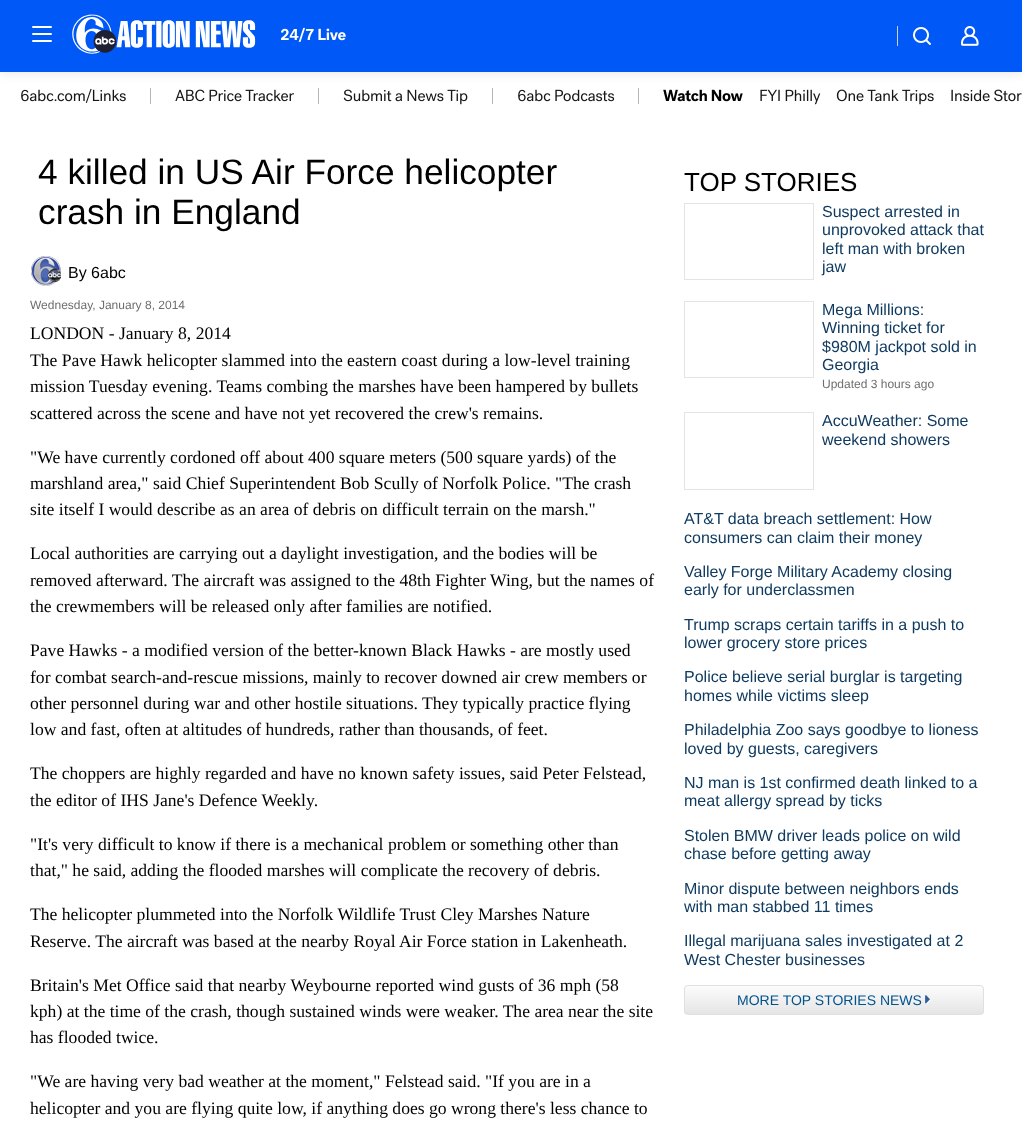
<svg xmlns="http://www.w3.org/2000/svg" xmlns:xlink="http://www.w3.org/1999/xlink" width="1022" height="1125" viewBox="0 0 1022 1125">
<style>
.cls-1{font:35.25px Liberation Sans;fill:#000000}
.cls-2{font:16px Liberation Sans;fill:#000000}
.cls-3{font:12px Liberation Sans;fill:#6e6e6e}
.cls-4{font:17.6px Liberation Serif;fill:#000000}
.cls-5{font:26px Liberation Sans;fill:#000000}
.cls-6{font:16px Liberation Sans;fill:#103b61}
.cls-7{font:14px Liberation Sans;fill:#00528d}
</style>
<defs>
<clipPath id="clip1"><rect x="684" y="985" width="300" height="30" rx="4"/></clipPath>
<linearGradient id="g1" gradientUnits="userSpaceOnUse" x1="834" y1="986" x2="834" y2="1014"><stop offset="0" stop-color="#fcfcfc"/><stop offset="1" stop-color="#e5e5e5"/></linearGradient>
</defs>
<rect width="100%" height="100%" fill="#ffffff"/>
<image xlink:href="image4.png" x="21" y="88" width="105" height="15"/>
<rect fill="#b0b5be" x="150" y="88" width="1" height="16"/>
<image xlink:href="image5.png" x="175" y="89" width="119" height="13"/>
<rect fill="#b0b5be" x="318" y="88" width="1" height="16"/>
<image xlink:href="image6.png" x="343" y="89" width="125" height="16"/>
<rect fill="#b0b5be" x="492" y="88" width="1" height="16"/>
<image xlink:href="image7.png" x="518" y="89" width="97" height="13"/>
<rect fill="#b0b5be" x="638" y="88" width="1" height="16"/>
<image xlink:href="image8.png" x="663" y="89" width="80" height="13"/>
<image xlink:href="image9.png" x="760" y="89" width="61" height="16"/>
<image xlink:href="image10.png" x="836" y="89" width="98" height="16"/>
<image xlink:href="image11.png" x="951" y="89" width="71" height="13"/>
<rect fill="#000000" fill-opacity="0.08" filter="blur(5px)" x="0" y="2" width="1022" height="72"/>
<rect fill="#0058f6" x="0" y="0" width="1022" height="72"/>
<rect fill="#ffffff" x="32" y="33" width="20" height="2" rx="1"/>
<rect fill="#ffffff" x="32" y="26" width="20" height="2" rx="1"/>
<rect fill="#ffffff" x="32" y="40" width="20" height="2" rx="1"/>
<image xlink:href="image0.png" x="72" y="14" width="184" height="40"/>
<image xlink:href="image1.png" x="280" y="27" width="66" height="15"/>
<rect fill="#cecfcf" x="897" y="26" width="1" height="20"/>
<image xlink:href="image2.png" x="913" y="27" width="18" height="18"/>
<image xlink:href="image3.png" x="961" y="26" width="18" height="20"/>
<image xlink:href="image12.png" x="31" y="256" width="30" height="30"/>
<rect fill="none" stroke="#e4e4e4" x="684.5" y="203.5" width="129" height="76"/>
<rect fill="none" stroke="#e4e4e4" x="684.5" y="301.5" width="129" height="76"/>
<rect fill="none" stroke="#e4e4e4" x="684.5" y="412.5" width="129" height="77"/>
<g clip-path="url(#clip1)">
<rect fill="url(#g1)" x="684" y="986" width="300" height="28"/>
</g>
<rect fill="none" stroke="#e0e0e0" x="684.5" y="985.5" width="299" height="29" rx="3.5"/>
<image xlink:href="image13.png" x="925" y="995" width="6" height="9"/>
<text class="cls-1"><tspan x="38" y="184">4 killed in US Air Force helicopter</tspan><tspan x="38" y="224">crash in England</tspan></text>
<text class="cls-2" x="68" y="278">By 6abc</text>
<text class="cls-3" x="30" y="309">Wednesday, January 8, 2014</text>
<text class="cls-4"><tspan x="30" y="339">LONDON - January 8, 2014</tspan><tspan x="30" y="366">The Pave Hawk helicopter slammed into the eastern coast during a low-level training</tspan><tspan x="30" y="392">mission Tuesday evening. Teams combing the marshes have been hampered by bullets</tspan><tspan x="30" y="419">scattered across the scene and have not yet recovered the crew's remains.</tspan></text>
<text class="cls-4"><tspan x="30" y="463">"We have currently cordoned off about 400 square meters (500 square yards) of the</tspan><tspan x="30" y="489">marshland area," said Chief Superintendent Bob Scully of Norfolk Police. "The crash</tspan><tspan x="30" y="515">site itself I would describe as an area of debris on difficult terrain on the marsh."</tspan></text>
<text class="cls-4"><tspan x="30" y="559">Local authorities are carrying out a daylight investigation, and the bodies will be</tspan><tspan x="30" y="586">removed afterward. The aircraft was assigned to the 48th Fighter Wing, but the names of</tspan><tspan x="30" y="612">the crewmembers will be released only after families are notified.</tspan></text>
<text class="cls-4"><tspan x="30" y="656">Pave Hawks - a modified version of the better-known Black Hawks - are mostly used</tspan><tspan x="30" y="683">for combat search-and-rescue missions, mainly to recover downed air crew members or</tspan><tspan x="30" y="709">other personnel during war and other hostile situations. They typically practice flying</tspan><tspan x="30" y="735">low and fast, often at altitudes of hundreds, rather than thousands, of feet.</tspan></text>
<text class="cls-4"><tspan x="30" y="779">The choppers are highly regarded and have no known safety issues, said Peter Felstead,</tspan><tspan x="30" y="806">the editor of IHS Jane's Defence Weekly.</tspan></text>
<text class="cls-4"><tspan x="30" y="850">"It's very difficult to know if there is a mechanical problem or something other than</tspan><tspan x="30" y="876">that," he said, adding the flooded marshes will complicate the recovery of debris.</tspan></text>
<text class="cls-4"><tspan x="30" y="920">The helicopter plummeted into the Norfolk Wildlife Trust Cley Marshes Nature</tspan><tspan x="30" y="947">Reserve. The aircraft was based at the nearby Royal Air Force station in Lakenheath.</tspan></text>
<text class="cls-4"><tspan x="30" y="991">Britain's Met Office said that nearby Weybourne reported wind gusts of 36 mph (58</tspan><tspan x="30" y="1017">kph) at the time of the crash, though sustained winds were weaker. The area near the site</tspan><tspan x="30" y="1043">has flooded twice.</tspan></text>
<text class="cls-4"><tspan x="30" y="1087">"We are having very bad weather at the moment," Felstead said. "If you are in a</tspan><tspan x="30" y="1114">helicopter and you are flying quite low, if anything does go wrong there's less chance to</tspan></text>
<text class="cls-5" x="684" y="191">TOP STORIES</text>
<text class="cls-6"><tspan x="822" y="217">Suspect arrested in</tspan><tspan x="822" y="235">unprovoked attack that</tspan><tspan x="822" y="254">left man with broken</tspan><tspan x="822" y="272">jaw</tspan></text>
<text class="cls-6"><tspan x="822" y="315">Mega Millions:</tspan><tspan x="822" y="333">Winning ticket for</tspan><tspan x="822" y="352">$980M jackpot sold in</tspan><tspan x="822" y="370">Georgia</tspan></text>
<text class="cls-3" x="822" y="388">Updated 3 hours ago</text>
<text class="cls-6"><tspan x="822" y="426">AccuWeather: Some</tspan><tspan x="822" y="445">weekend showers</tspan></text>
<text class="cls-6"><tspan x="684" y="524">AT&amp;T data breach settlement: How</tspan><tspan x="684" y="543">consumers can claim their money</tspan></text>
<text class="cls-6"><tspan x="684" y="577">Valley Forge Military Academy closing</tspan><tspan x="684" y="595">early for underclassmen</tspan></text>
<text class="cls-6"><tspan x="684" y="630">Trump scraps certain tariffs in a push to</tspan><tspan x="684" y="648">lower grocery store prices</tspan></text>
<text class="cls-6"><tspan x="684" y="682">Police believe serial burglar is targeting</tspan><tspan x="684" y="701">homes while victims sleep</tspan></text>
<text class="cls-6"><tspan x="684" y="735">Philadelphia Zoo says goodbye to lioness</tspan><tspan x="684" y="754">loved by guests, caregivers</tspan></text>
<text class="cls-6"><tspan x="684" y="788">NJ man is 1st confirmed death linked to a</tspan><tspan x="684" y="806">meat allergy spread by ticks</tspan></text>
<text class="cls-6"><tspan x="684" y="841">Stolen BMW driver leads police on wild</tspan><tspan x="684" y="859">chase before getting away</tspan></text>
<text class="cls-6"><tspan x="684" y="894">Minor dispute between neighbors ends</tspan><tspan x="684" y="912">with man stabbed 11 times</tspan></text>
<text class="cls-6"><tspan x="684" y="946">Illegal marijuana sales investigated at 2</tspan><tspan x="684" y="965">West Chester businesses</tspan></text>
<text class="cls-7" x="737" y="1005">MORE TOP STORIES NEWS</text>
</svg>
